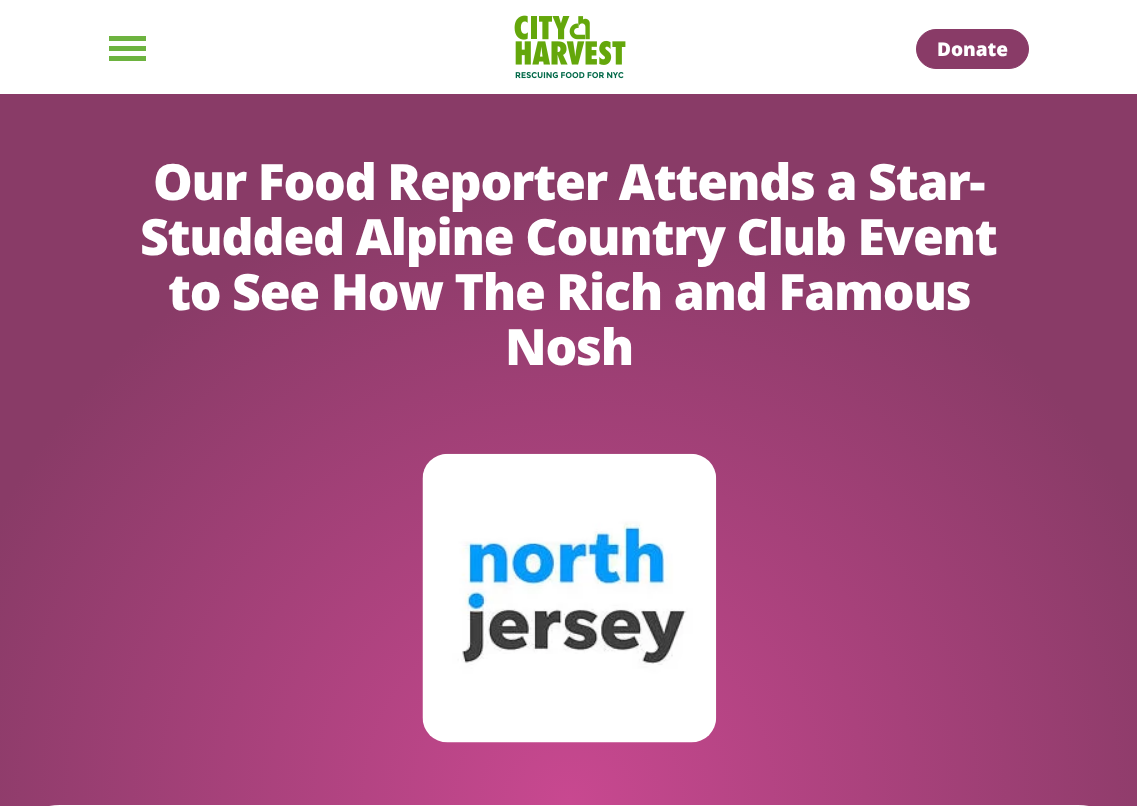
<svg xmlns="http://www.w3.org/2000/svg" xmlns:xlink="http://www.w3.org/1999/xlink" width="1137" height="806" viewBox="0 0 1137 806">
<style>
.cls-1{font:800 19px Open Sans;fill:#ffffff}
.cls-2{font:800 50px Open Sans;letter-spacing:-1.25px;fill:#ffffff}
</style>
<defs>
<radialGradient id="g1" gradientUnits="userSpaceOnUse" cx="0" cy="0" r="1" gradientTransform="matrix(641 0 0 626 569 800)"><stop offset="0" stop-color="#d03d90"/><stop offset="0" stop-color="#c84890"/><stop offset="0" stop-color="#c84890"/><stop offset="1" stop-color="#893b67"/></radialGradient>
</defs>
<rect width="100%" height="100%" fill="#ffffff"/>
<rect fill="#6db33f" x="109" y="36" width="37" height="5"/>
<rect fill="#6db33f" x="109" y="46" width="37" height="5"/>
<rect fill="#6db33f" x="109" y="56" width="37" height="5"/>
<image xlink:href="image0.png" x="514" y="15" width="112" height="64"/>
<rect fill="#893b67" stroke="#893b67" x="916.5" y="29.5" width="112" height="39" rx="19.5"/>
<rect fill="url(#g1)" x="0" y="94" width="1137" height="712"/>
<image xlink:href="image1.png" x="422" y="453" width="295" height="290"/>
<path fill="#ffffff" d="M60 805H1078C1111 805 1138 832 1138 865V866H0V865C0 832 27 805 60 805Z"/>
<text class="cls-1" x="937" y="56">Donate</text>
<text class="cls-2" x="153" y="200">Our Food Reporter Attends a Star-</text>
<text class="cls-2" x="140" y="255">Studded Alpine Country Club Event</text>
<text class="cls-2" x="168" y="310">to See How The Rich and Famous</text>
<text class="cls-2" x="505" y="365">Nosh</text>
</svg>
